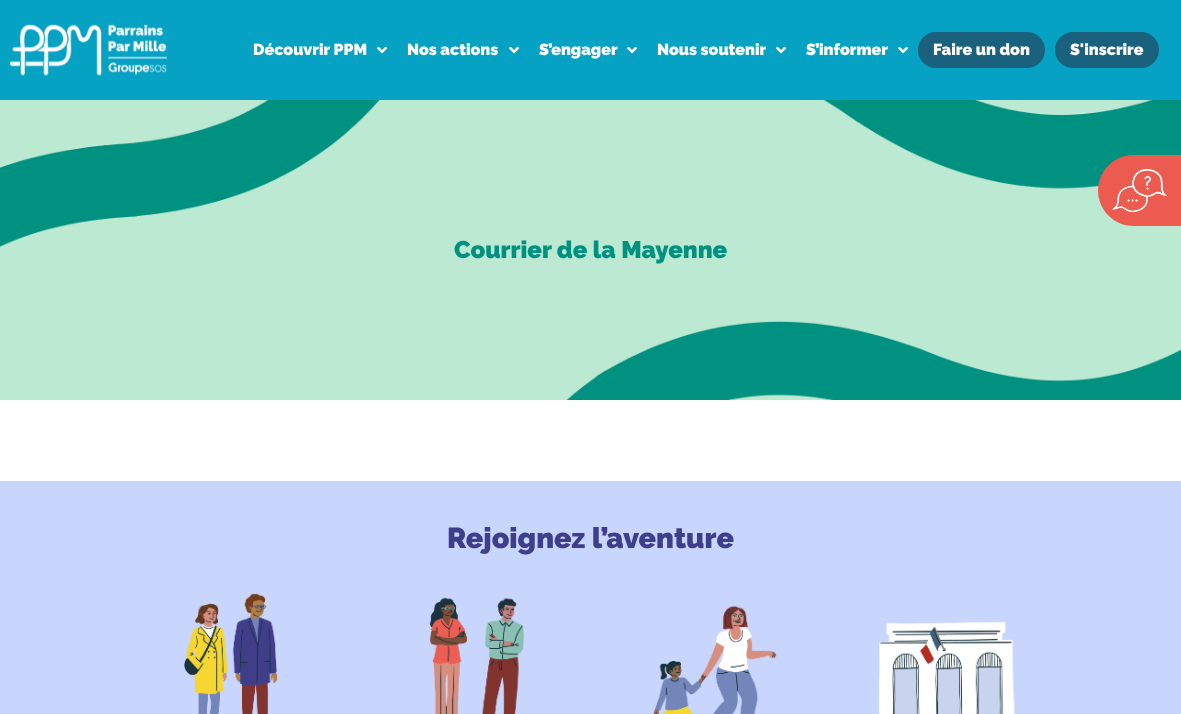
<svg xmlns="http://www.w3.org/2000/svg" xmlns:xlink="http://www.w3.org/1999/xlink" width="1181" height="714" viewBox="0 0 1181 714">
<style>
.cls-1{font:900 16px Raleway;fill:#ffffff}
.cls-2{font:900 24px Raleway;fill:#009180}
.cls-3{font:900 28.75px Raleway;fill:#3f3e8a}
</style>
<rect width="100%" height="100%" fill="#ffffff"/>
<rect fill="#06a2c4" x="0" y="0" width="1181" height="100"/>
<image xlink:href="image0.png" x="10" y="24" width="157" height="52"/>
<image xlink:href="image1.png" x="377" y="46" width="10" height="8"/>
<image xlink:href="image1.png" x="509" y="46" width="10" height="8"/>
<image xlink:href="image1.png" x="627" y="46" width="10" height="8"/>
<image xlink:href="image1.png" x="776" y="46" width="10" height="8"/>
<image xlink:href="image1.png" x="898" y="46" width="10" height="8"/>
<rect fill="#19617d" x="918" y="32" width="127" height="36" rx="18"/>
<image xlink:href="image3.png" x="0" y="100" width="1181" height="300"/>
<path fill="#eb5b50" d="M1133.5 155H1181V226H1133.5C1114 226 1098 210 1098 190.5C1098 171 1114 155 1133.5 155Z"/>
<image xlink:href="image2.png" x="1112" y="169" width="55" height="44"/>
<rect fill="#19617d" x="1055" y="32" width="104" height="36" rx="18"/>
<rect fill="#c8d5fc" x="0" y="481" width="1181" height="233"/>
<image xlink:href="image4.png" x="184" y="593" width="94" height="121"/>
<image xlink:href="image5.png" x="429" y="597" width="95" height="117"/>
<image xlink:href="image6.png" x="653" y="605" width="124" height="109"/>
<image xlink:href="image7.png" x="878" y="621" width="137" height="93"/>
<text class="cls-1" x="253" y="55">Découvrir PPM</text>
<text class="cls-1" x="407" y="55">Nos actions</text>
<text class="cls-1" x="539" y="55">S’engager</text>
<text class="cls-1" x="657" y="55">Nous soutenir</text>
<text class="cls-1" x="806" y="55">S’informer</text>
<text class="cls-1" x="933" y="55">Faire un don</text>
<text class="cls-1" x="1070" y="55">S'inscrire</text>
<text class="cls-2" x="454" y="258">Courrier de la Mayenne</text>
<text class="cls-3" x="447" y="548">Rejoignez l’aventure</text>
</svg>
